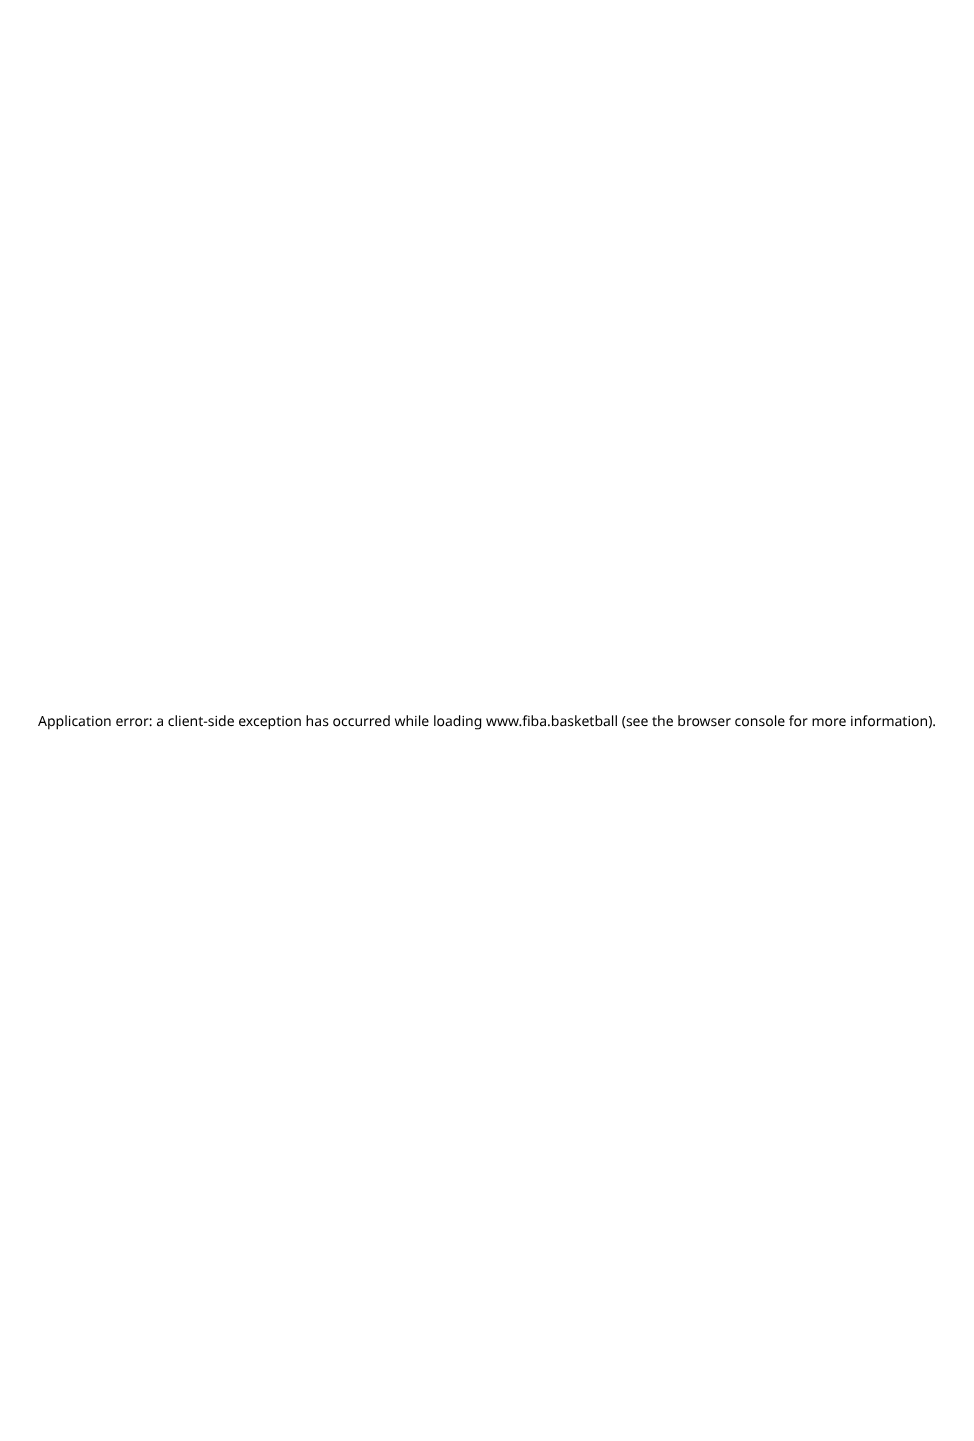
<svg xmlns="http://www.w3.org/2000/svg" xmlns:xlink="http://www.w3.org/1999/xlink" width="974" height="1441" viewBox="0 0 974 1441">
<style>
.cls-1{font:14px Noto Sans;fill:#000000}
</style>
<rect width="100%" height="100%" fill="#ffffff"/>
<text class="cls-1" x="38" y="726">Application error: a client-side exception has occurred while loading www.fiba.basketball (see the browser console for more information).</text>
</svg>
